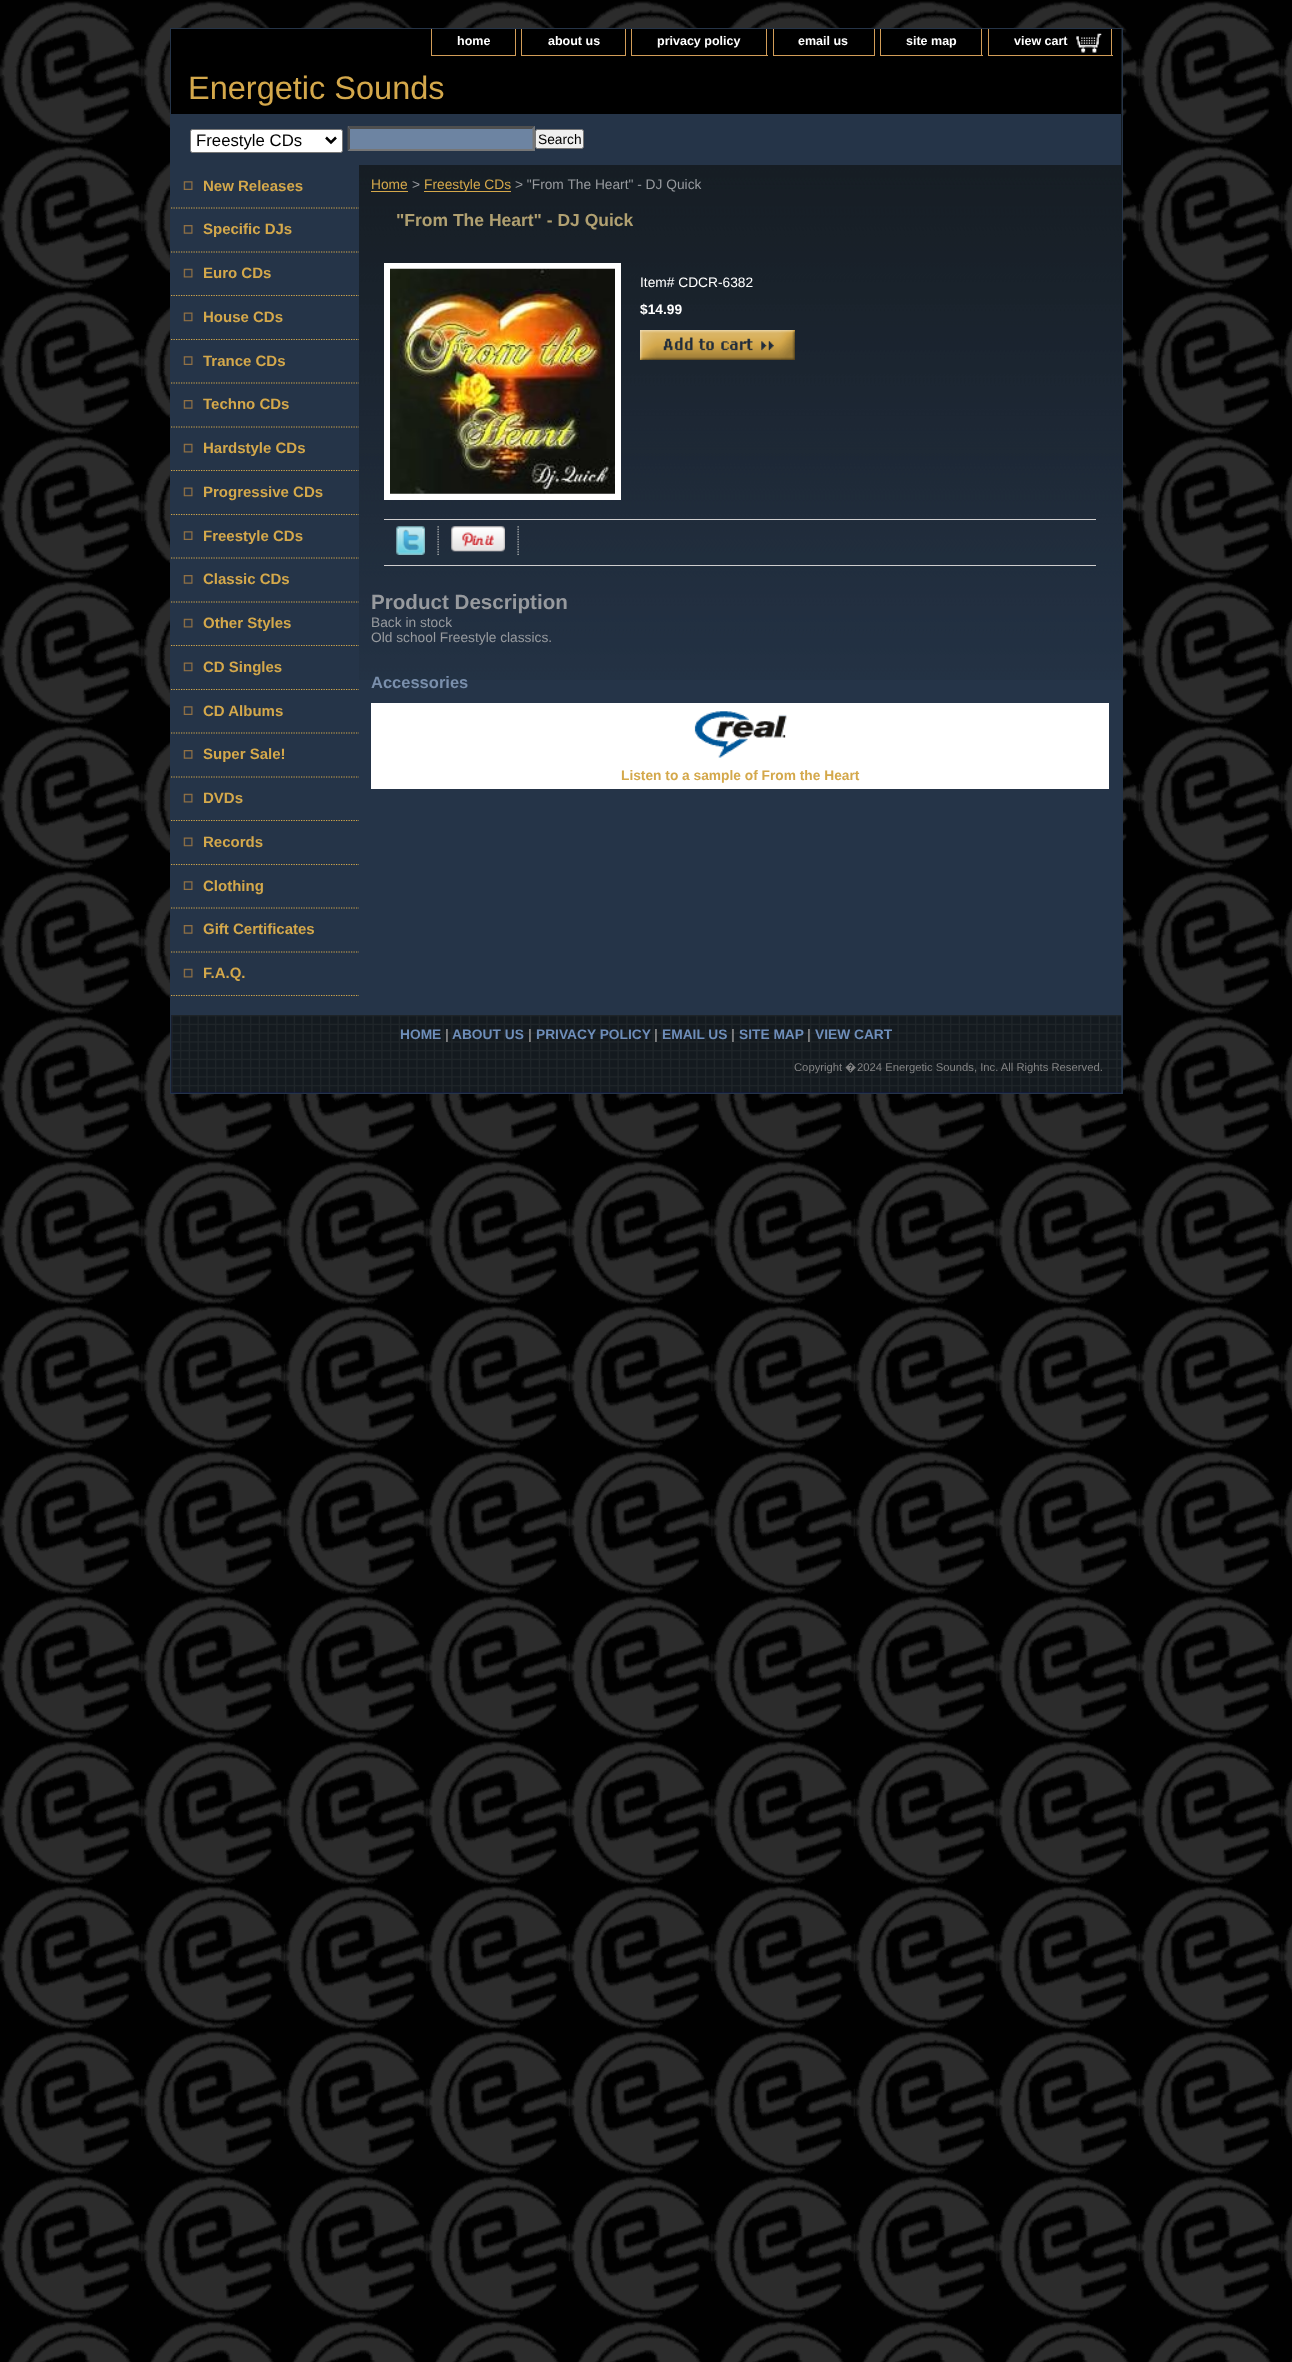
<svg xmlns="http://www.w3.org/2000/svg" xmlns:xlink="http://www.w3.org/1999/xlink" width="1292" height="2362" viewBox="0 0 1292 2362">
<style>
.cls-1{font:bold 12.5px Liberation Sans;fill:#ffffff}
.cls-2{font:32.5px Liberation Sans;fill:#d4a84b}
.cls-3{font:16.75px Liberation Sans;fill:#000000}
.cls-4{font:13.75px Liberation Sans;fill:#000000}
.cls-5{font:bold 15px Liberation Sans;fill:#d4a84b}
.cls-6{font:13.75px Liberation Sans;fill:#d4a84b}
.cls-7{font:13.75px Liberation Sans;fill:#979a9e}
.cls-8{font:bold 17.5px Liberation Sans;fill:#b0a071}
.cls-9{font:13.75px Liberation Sans;fill:#ffffff}
.cls-10{font:bold 13.75px Liberation Sans;fill:#ffffff}
.cls-11{font:bold 20.6px Liberation Sans;fill:#979a9e}
.cls-12{font:bold 16.5px Liberation Sans;fill:#7a8fac}
.cls-13{font:bold 13.75px Liberation Sans;fill:#d4a84b}
.cls-14{font:bold 13.75px Liberation Sans;fill:#6e8eba}
.cls-15{font:bold 13.75px Liberation Sans;fill:#838384}
.cls-16{font:11.25px Liberation Sans;fill:#838384}
.cls-17{font:11.25px Noto Sans;fill:#838384}
</style>
<defs>
<clipPath id="clip1"><rect x="171" y="165" width="188" height="831"/></clipPath>
</defs>
<rect width="100%" height="100%" fill="#ffffff"/>
<image xlink:href="image0.png" x="0" y="0" width="1292" height="2362"/>
<rect fill="#253448" x="171" y="680" width="951" height="413"/>
<image xlink:href="image1.png" x="359" y="29" width="763" height="651"/>
<rect fill="none" stroke="#253448" x="170.5" y="28.5" width="952" height="1065"/>
<rect fill="#000000" x="171" y="29" width="950" height="85"/>
<rect fill="#d29d58" x="515" y="29" width="1" height="27"/>
<rect fill="#d29d58" x="431" y="55" width="85" height="1"/>
<rect fill="#d29d58" x="431" y="29" width="1" height="27"/>
<rect fill="#d29d58" x="625" y="29" width="1" height="27"/>
<rect fill="#d29d58" x="521" y="55" width="105" height="1"/>
<rect fill="#d29d58" x="521" y="29" width="1" height="27"/>
<rect fill="#d29d58" x="766" y="29" width="1" height="27"/>
<rect fill="#d29d58" x="631" y="55" width="137" height="1"/>
<rect fill="#d29d58" x="631" y="29" width="1" height="27"/>
<rect fill="#d29d58" x="874" y="29" width="1" height="27"/>
<rect fill="#d29d58" x="773" y="55" width="102" height="1"/>
<rect fill="#d29d58" x="773" y="29" width="1" height="27"/>
<rect fill="#d29d58" x="981" y="29" width="1" height="27"/>
<rect fill="#d29d58" x="880" y="55" width="103" height="1"/>
<rect fill="#d29d58" x="880" y="29" width="1" height="27"/>
<rect fill="#d29d58" x="1111" y="29" width="1" height="27"/>
<rect fill="#d29d58" x="988" y="55" width="125" height="1"/>
<rect fill="#d29d58" x="988" y="29" width="1" height="27"/>
<image xlink:href="image2.png" x="1076" y="33" width="26" height="20"/>
<rect fill="#253448" x="171" y="114" width="950" height="51"/>
<rect fill="#ffffff" stroke="#767676" x="190.5" y="129.5" width="152" height="23" rx="2"/>
<path fill="none" stroke="#000000" stroke-width="2.5" d="M326 137.5L331 142.5L336 137.5"/>
<rect fill="#6d84a2" x="348" y="126" width="187" height="25"/>
<path fill="#4f4f4f" d="M348 126H535L532 129H350Z"/>
<path fill="#767676" d="M535 126V151L532.5 149V129Z"/>
<path fill="#767676" d="M535 151H348L350 149H532Z"/>
<path fill="#4f4f4f" d="M347.5 151V126L350 129V149Z"/>
<rect fill="#efefef" stroke="#767676" x="535.5" y="129.5" width="48" height="19" rx="2"/>
<rect fill="#253448" x="171" y="165" width="188" height="515"/>
<image xlink:href="image3.png" x="183" y="181" width="10" height="9"/>
<path fill="none" stroke="#d4a84b" stroke-width="1.2" stroke-dasharray="1.25 1.25" d="M171 208H359"/>
<image xlink:href="image4.png" x="183" y="225" width="10" height="9"/>
<path fill="none" stroke="#d4a84b" stroke-width="1.2" stroke-dasharray="1.25 1.25" d="M171 252H359"/>
<image xlink:href="image5.png" x="183" y="268" width="10" height="10"/>
<path fill="none" stroke="#d4a84b" stroke-width="1.2" stroke-dasharray="1.25 1.25" d="M171 295.5H359"/>
<image xlink:href="image6.png" x="183" y="312" width="10" height="10"/>
<path fill="none" stroke="#d4a84b" stroke-width="1.2" stroke-dasharray="1.25 1.25" d="M171 339.5H359"/>
<image xlink:href="image3.png" x="183" y="356" width="10" height="9"/>
<path fill="none" stroke="#d4a84b" stroke-width="1.2" stroke-dasharray="1.25 1.25" d="M171 383H359"/>
<image xlink:href="image4.png" x="183" y="400" width="10" height="9"/>
<path fill="none" stroke="#d4a84b" stroke-width="1.2" stroke-dasharray="1.25 1.25" d="M171 427H359"/>
<image xlink:href="image5.png" x="183" y="443" width="10" height="10"/>
<path fill="none" stroke="#d4a84b" stroke-width="1.2" stroke-dasharray="1.25 1.25" d="M171 470.5H359"/>
<image xlink:href="image6.png" x="183" y="487" width="10" height="10"/>
<path fill="none" stroke="#d4a84b" stroke-width="1.2" stroke-dasharray="1.25 1.25" d="M171 514.5H359"/>
<image xlink:href="image3.png" x="183" y="531" width="10" height="9"/>
<path fill="none" stroke="#d4a84b" stroke-width="1.2" stroke-dasharray="1.25 1.25" d="M171 558H359"/>
<image xlink:href="image4.png" x="183" y="575" width="10" height="9"/>
<path fill="none" stroke="#d4a84b" stroke-width="1.2" stroke-dasharray="1.25 1.25" d="M171 602H359"/>
<image xlink:href="image5.png" x="183" y="618" width="10" height="10"/>
<path fill="none" stroke="#d4a84b" stroke-width="1.2" stroke-dasharray="1.25 1.25" d="M171 645.5H359"/>
<image xlink:href="image6.png" x="183" y="662" width="10" height="10"/>
<path fill="none" stroke="#d4a84b" stroke-width="1.2" stroke-dasharray="1.25 1.25" d="M171 689.5H359"/>
<image xlink:href="image3.png" x="183" y="706" width="10" height="9"/>
<path fill="none" stroke="#d4a84b" stroke-width="1.2" stroke-dasharray="1.25 1.25" d="M171 733H359"/>
<image xlink:href="image4.png" x="183" y="750" width="10" height="9"/>
<path fill="none" stroke="#d4a84b" stroke-width="1.2" stroke-dasharray="1.25 1.25" d="M171 777H359"/>
<image xlink:href="image5.png" x="183" y="793" width="10" height="10"/>
<path fill="none" stroke="#d4a84b" stroke-width="1.2" stroke-dasharray="1.25 1.25" d="M171 820.5H359"/>
<image xlink:href="image6.png" x="183" y="837" width="10" height="10"/>
<path fill="none" stroke="#d4a84b" stroke-width="1.2" stroke-dasharray="1.25 1.25" d="M171 864.5H359"/>
<image xlink:href="image3.png" x="183" y="881" width="10" height="9"/>
<path fill="none" stroke="#d4a84b" stroke-width="1.2" stroke-dasharray="1.25 1.25" d="M171 908H359"/>
<image xlink:href="image4.png" x="183" y="925" width="10" height="9"/>
<path fill="none" stroke="#d4a84b" stroke-width="1.2" stroke-dasharray="1.25 1.25" d="M171 952H359"/>
<image xlink:href="image5.png" x="183" y="968" width="10" height="10"/>
<g clip-path="url(#clip1)">
<path fill="none" stroke="#d4a84b" stroke-width="1.2" stroke-dasharray="1.25 1.25" d="M171 995.5H359"/>
</g>
<rect fill="#d4a84b" x="371" y="191" width="37" height="1"/>
<rect fill="#d4a84b" x="424" y="191" width="87" height="1"/>
<rect fill="#ffffff" x="384" y="263" width="237" height="237"/>
<image xlink:href="image7.png" x="390" y="268" width="225" height="226"/>
<image xlink:href="image8.png" x="640" y="330" width="155" height="30"/>
<rect fill="#cfcece" x="384" y="519" width="712" height="1"/>
<image xlink:href="image9.png" x="396" y="526" width="29" height="29"/>
<image xlink:href="image10.png" x="437" y="526" width="2" height="29"/>
<image xlink:href="image11.png" x="451" y="526" width="54" height="26"/>
<image xlink:href="image12.png" x="517" y="526" width="2" height="29"/>
<rect fill="#cfcece" x="384" y="565" width="712" height="1"/>
<rect fill="#ffffff" x="371" y="703" width="738" height="86"/>
<image xlink:href="image13.png" x="694" y="711" width="93" height="47"/>
<rect fill="#141a4f" x="171" y="1015" width="950" height="78"/>
<image xlink:href="image14.png" x="171" y="1015" width="951" height="78"/>
<text class="cls-1" x="457" y="45">home</text>
<text class="cls-1" x="548" y="45">about us</text>
<text class="cls-1" x="657" y="45">privacy policy</text>
<text class="cls-1" x="798" y="45">email us</text>
<text class="cls-1" x="906" y="45">site map</text>
<text class="cls-1" x="1014" y="45">view cart</text>
<text class="cls-2" x="188" y="99">Energetic Sounds</text>
<text class="cls-3" x="196" y="146">Freestyle CDs</text>
<text class="cls-4" x="538" y="144">Search</text>
<text class="cls-5" x="203" y="191">New Releases</text>
<text class="cls-5" x="203" y="234">Specific DJs</text>
<text class="cls-5" x="203" y="278">Euro CDs</text>
<text class="cls-5" x="203" y="322">House CDs</text>
<text class="cls-5" x="203" y="366">Trance CDs</text>
<text class="cls-5" x="203" y="409">Techno CDs</text>
<text class="cls-5" x="203" y="453">Hardstyle CDs</text>
<text class="cls-5" x="203" y="497">Progressive CDs</text>
<text class="cls-5" x="203" y="541">Freestyle CDs</text>
<text class="cls-5" x="203" y="584">Classic CDs</text>
<text class="cls-5" x="203" y="628">Other Styles</text>
<text class="cls-5" x="203" y="672">CD Singles</text>
<text class="cls-5" x="203" y="716">CD Albums</text>
<text class="cls-5" x="203" y="759">Super Sale!</text>
<text class="cls-5" x="203" y="803">DVDs</text>
<text class="cls-5" x="203" y="847">Records</text>
<text class="cls-5" x="203" y="891">Clothing</text>
<text class="cls-5" x="203" y="934">Gift Certificates</text>
<text class="cls-5" x="203" y="978">F.A.Q.</text>
<text class="cls-6" x="371" y="189">Home</text>
<text class="cls-7" x="412" y="189">&gt;</text>
<text class="cls-6" x="424" y="189">Freestyle CDs</text>
<text class="cls-7" x="515" y="189">&gt; "From The Heart" - DJ Quick</text>
<text class="cls-8" x="396" y="226">"From The Heart" - DJ Quick</text>
<text class="cls-9" x="640" y="287">Item# CDCR-6382</text>
<text class="cls-10" x="640" y="314">$14.99</text>
<text class="cls-11" x="371" y="609">Product Description</text>
<text class="cls-7"><tspan x="371" y="627">Back in stock</tspan><tspan x="371" y="642">Old school Freestyle classics.</tspan></text>
<text class="cls-12" x="371" y="688">Accessories</text>
<text class="cls-13" x="621" y="780">Listen to a sample of From the Heart</text>
<text class="cls-14" x="400" y="1039">HOME</text>
<text class="cls-15" x="445" y="1039">|</text>
<text class="cls-14" x="452" y="1039">ABOUT US</text>
<text class="cls-15" x="528" y="1039">|</text>
<text class="cls-14" x="536" y="1039">PRIVACY POLICY</text>
<text class="cls-15" x="654" y="1039">|</text>
<text class="cls-14" x="662" y="1039">EMAIL US</text>
<text class="cls-15" x="731" y="1039">|</text>
<text class="cls-14" x="739" y="1039">SITE MAP</text>
<text class="cls-15" x="807" y="1039">|</text>
<text class="cls-14" x="815" y="1039">VIEW CART</text>
<text class="cls-16" x="794" y="1071">Copyright</text>
<text class="cls-17" x="845" y="1071">�</text>
<text class="cls-16" x="857" y="1071">2024 Energetic Sounds, Inc. All Rights Reserved.</text>
</svg>
